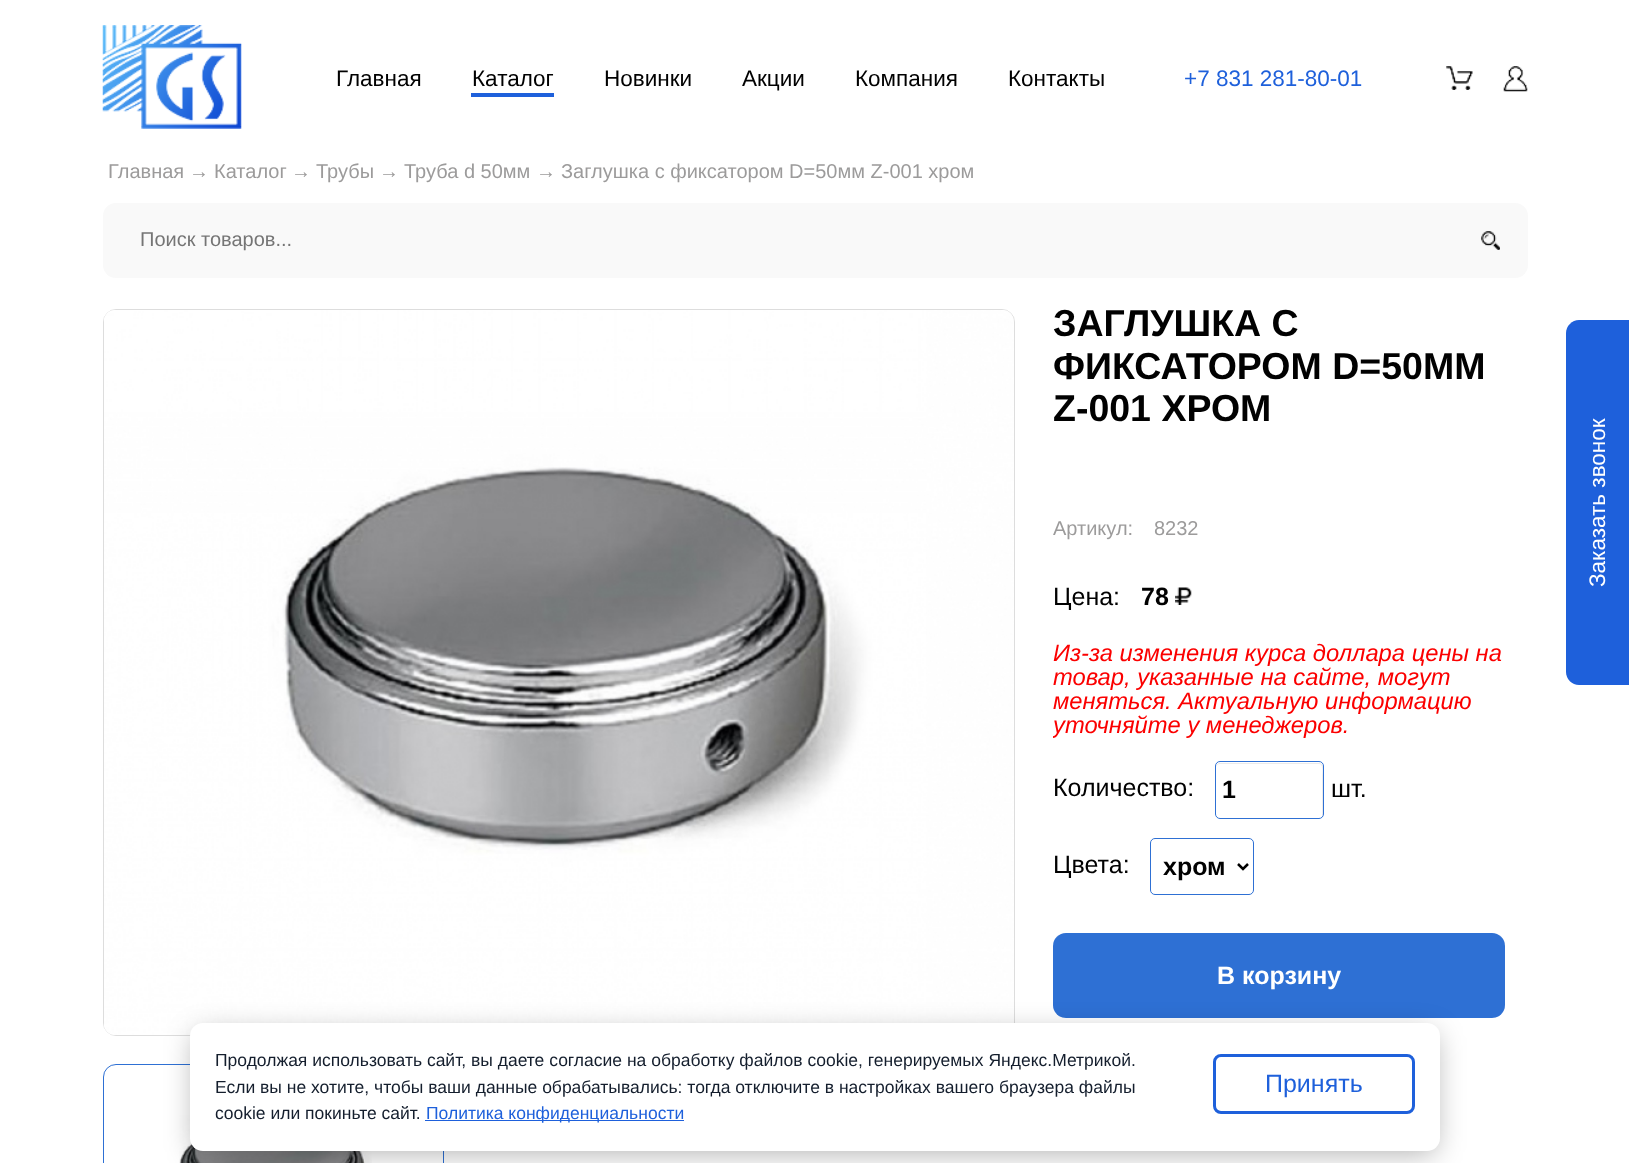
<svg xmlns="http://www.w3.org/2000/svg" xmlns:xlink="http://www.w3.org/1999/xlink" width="1629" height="1163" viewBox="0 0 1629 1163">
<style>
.cls-1{font:22.5px Liberation Sans;fill:#010101}
.cls-2{font:22.5px Liberation Sans;fill:#1e60db}
.cls-3{font:20px Liberation Sans;fill:#9c9b9b}
.cls-4{font:20px Liberation Sans;fill:#757575}
.cls-5{font:bold 37.5px Liberation Sans;fill:#010101}
.cls-6{font:25px Liberation Sans;fill:#010101}
.cls-7{font:bold 25px Liberation Sans;fill:#010101}
.cls-8{font:italic 23.75px Liberation Sans;fill:#fb0000}
.cls-9{font:bold 25px Liberation Sans;fill:#ffffff}
.cls-10{font:22.5px Liberation Sans;fill:#ffffff}
.cls-11{font:17.5px Liberation Sans;fill:#141e2d}
.cls-12{font:17.5px Liberation Sans;fill:#1e60db}
.cls-13{font:25px Liberation Sans;fill:#1e60db}
</style>
<defs>
<clipPath id="clip1"><rect x="1053" y="278" width="475" height="815"/></clipPath>
</defs>
<rect width="100%" height="100%" fill="#ffffff"/>
<image xlink:href="image0.png" x="102" y="25" width="140" height="104"/>
<rect fill="#1e60db" x="471" y="93" width="83" height="4"/>
<image xlink:href="image1.png" x="1446" y="66" width="27" height="24"/>
<image xlink:href="image2.png" x="1503" y="66" width="25" height="26"/>
<rect fill="#f9f9f9" x="103" y="203" width="1425" height="75" rx="13"/>
<image xlink:href="image3.png" x="1481" y="231" width="19" height="19"/>
<rect fill="none" stroke="#dddddd" x="103.5" y="309.5" width="911" height="726" rx="12.5"/>
<image xlink:href="image4.png" x="104" y="310" width="910" height="725"/>
<rect fill="none" stroke="#2e70d4" x="103.5" y="1064.5" width="340" height="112" rx="12.5"/>
<image xlink:href="image5.png" x="179" y="1115" width="193" height="48"/>
<image xlink:href="image6.png" x="1175" y="587" width="17" height="18"/>
<path fill="#ebebeb" d="M1220 764H1319C1324 764 1322 774 1322 776V817C1322 816 1323 815 1323 814V767C1323 765 1321 763 1319 763H1220C1218 763 1216 765 1216 767V768C1216 765 1218 764 1220 764Z"/>
<rect fill="none" stroke="#2e70d4" x="1215.5" y="761.5" width="108" height="57" rx="4.5"/>
<rect fill="none" stroke="#2e70d4" x="1150.5" y="838.5" width="103" height="56" rx="4.5"/>
<path fill="none" stroke="#000000" stroke-width="2.5" d="M1238 864L1243 869L1248 864"/>
<rect fill="#2e70d4" x="1053" y="933" width="452" height="85" rx="13"/>
<path fill="#1e60db" d="M1579 320H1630V685H1579C1572 685 1566 679 1566 672V333C1566 326 1572 320 1579 320Z"/>
<rect fill="#000000" fill-opacity="0.3" filter="blur(14.5px)" x="194" y="1033" width="1242" height="121" rx="9"/>
<rect fill="#ffffff" x="190" y="1023" width="1250" height="128" rx="13"/>
<rect fill="#1e60db" x="425" y="1120" width="259" height="1"/>
<rect fill="none" stroke="#1e60db" stroke-width="3" x="1214.5" y="1055.5" width="199" height="57" rx="6.5"/>
<text class="cls-1" x="336" y="86">Главная</text>
<text class="cls-1" x="472" y="86">Каталог</text>
<text class="cls-1" x="604" y="86">Новинки</text>
<text class="cls-1" x="742" y="86">Акции</text>
<text class="cls-1" x="855" y="86">Компания</text>
<text class="cls-1" x="1008" y="86">Контакты</text>
<text class="cls-2" x="1184" y="86">+7 831 281-80-01</text>
<text class="cls-3" x="108" y="178">Главная</text>
<text class="cls-3" x="189" y="178">→</text>
<text class="cls-3" x="214" y="178">Каталог</text>
<text class="cls-3" x="291" y="178">→</text>
<text class="cls-3" x="316" y="178">Трубы</text>
<text class="cls-3" x="379" y="178">→</text>
<text class="cls-3" x="404" y="178">Труба d 50мм</text>
<text class="cls-3" x="536" y="178">→</text>
<text class="cls-3" x="561" y="178">Заглушка с фиксатором D=50мм Z-001 хром</text>
<text class="cls-4" x="140" y="246">Поиск товаров...</text>
<text class="cls-5"><tspan x="1053" y="336">ЗАГЛУШКА С</tspan><tspan x="1053" y="379">ФИКСАТОРОМ D=50ММ</tspan><tspan x="1053" y="421">Z-001 ХРОМ</tspan></text>
<text class="cls-3" x="1053" y="535">Артикул:</text>
<text class="cls-3" x="1154" y="535">8232</text>
<text class="cls-6" x="1053" y="605">Цена:</text>
<text class="cls-7" x="1141" y="605">78</text>
<text class="cls-8"><tspan x="1053" y="661">Из-за изменения курса доллара цены на</tspan><tspan x="1053" y="685">товар, указанные на сайте, могут</tspan><tspan x="1053" y="709">меняться. Актуальную информацию</tspan></text>
<g clip-path="url(#clip1)">
<text class="cls-8" x="1053" y="733">уточняйте у менеджеров.</text>
</g>
<text class="cls-6" x="1053" y="796">Количество:</text>
<text class="cls-7" x="1222" y="798">1</text>
<text class="cls-6" x="1331" y="797">шт.</text>
<text class="cls-6" x="1053" y="873">Цвета:</text>
<text class="cls-7" x="1163" y="875">хром</text>
<text class="cls-9" x="1217" y="984">В корзину</text>
<text class="cls-10" x="1605" y="587" transform="rotate(-90 1605 587)">Заказать звонок</text>
<text class="cls-11"><tspan x="215" y="1066">Продолжая использовать сайт, вы даете согласие на обработку файлов cookie, генерируемых Яндекс.Метрикой.</tspan><tspan x="215" y="1093">Если вы не хотите, чтобы ваши данные обрабатывались: тогда отключите в настройках вашего браузера файлы</tspan><tspan x="215" y="1119">cookie или покиньте сайт.</tspan></text>
<text class="cls-12" x="426" y="1119">Политика конфиденциальности</text>
<text class="cls-13" x="1265" y="1092">Принять</text>
</svg>
